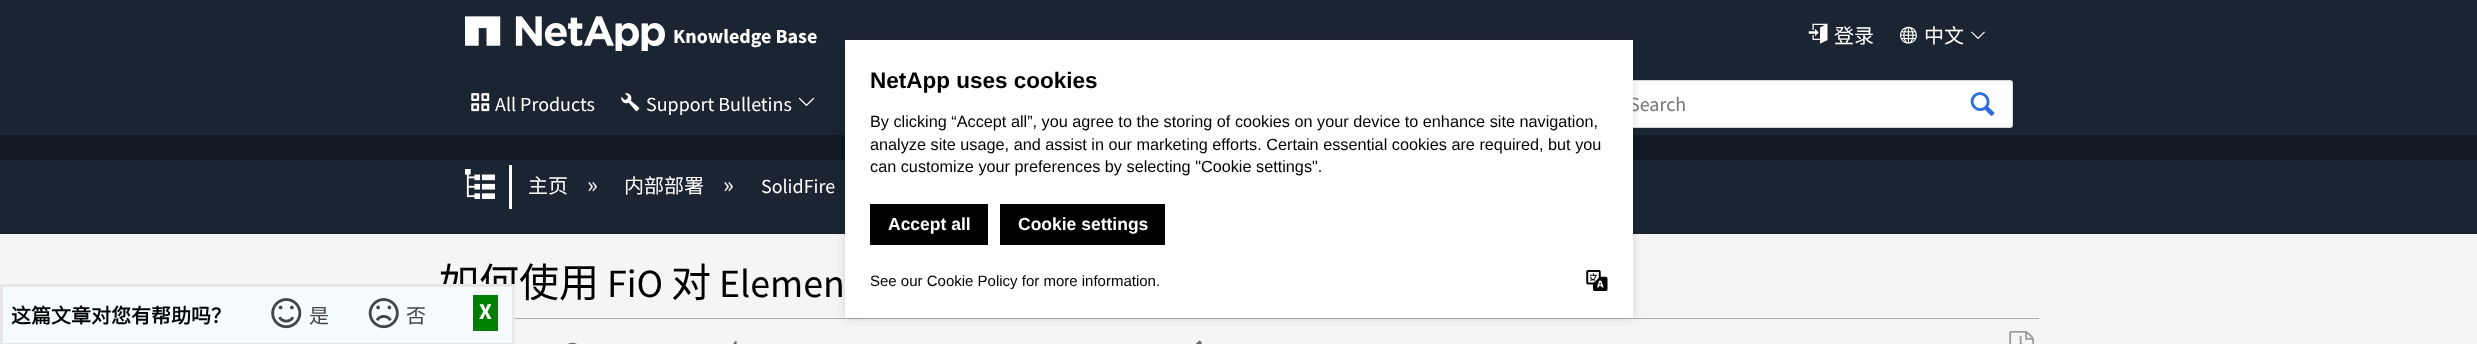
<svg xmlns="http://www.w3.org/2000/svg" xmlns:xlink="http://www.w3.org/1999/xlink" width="2477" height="344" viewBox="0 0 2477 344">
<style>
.cls-1{font:bold 20px Source Sans Pro;fill:#ffffff}
.cls-2{font:20px Noto Sans CJK SC;fill:#ffffff}
.cls-3{font:20px Source Sans Pro;fill:#ffffff}
.cls-4{font:20px Source Sans Pro;fill:#757575}
.cls-5{font:25px Source Sans Pro;fill:#ffffff}
.cls-6{font:40px Noto Sans CJK SC;fill:#000000}
.cls-7{font:40px Source Sans Pro;fill:#000000}
.cls-8{font:bold 20px Noto Sans CJK SC;fill:#000000}
.cls-9{font:20px Noto Sans CJK SC;fill:#454545}
.cls-10{font:bold 22.5px Source Sans Pro;fill:#ffffff}
.cls-11{font:bold 22.5px Liberation Sans;fill:#000000}
.cls-12{font:16.25px Liberation Sans;fill:#000000}
.cls-13{font:bold 17.5px Liberation Sans;fill:#ffffff}
.cls-14{font:15px Liberation Sans;fill:#000000}
</style>
<rect width="100%" height="100%" fill="#f5f5f5"/>
<rect fill="#111925" x="0" y="135" width="2477" height="25"/>
<rect fill="#1b2431" x="0" y="0" width="2477" height="135"/>
<image xlink:href="image0.png" x="465" y="16" width="200" height="35"/>
<image xlink:href="image1.png" x="1808" y="23" width="20" height="21"/>
<image xlink:href="image2.png" x="1900" y="26" width="17" height="18"/>
<image xlink:href="image3.png" x="1971" y="31" width="14" height="8"/>
<image xlink:href="image4.png" x="471" y="93" width="19" height="19"/>
<image xlink:href="image5.png" x="621" y="93" width="19" height="19"/>
<image xlink:href="image6.png" x="798" y="97" width="17" height="9"/>
<rect fill="#ffffff" stroke="#d7d7d7" x="1613.5" y="80.5" width="399" height="47" rx="2"/>
<image xlink:href="image7.png" x="1970" y="92" width="25" height="24"/>
<rect fill="#1b2431" x="0" y="160" width="2477" height="74"/>
<image xlink:href="image8.png" x="465" y="169" width="30" height="30"/>
<rect fill="#ffffff" x="509" y="165" width="3" height="44"/>
<rect fill="#a8adb1" x="515" y="318" width="1524" height="1"/>
<image xlink:href="image9.png" x="2009" y="331" width="25" height="13"/>
<image xlink:href="image12.png" x="568" y="342" width="9" height="2"/>
<image xlink:href="image13.png" x="733" y="341" width="4" height="3"/>
<image xlink:href="image14.png" x="1196" y="340" width="6" height="4"/>
<rect fill="#000000" fill-opacity="0.15" filter="blur(5px)" x="845" y="40" width="788" height="278"/>
<text class="cls-1" x="673" y="43">Knowledge Base</text>
<text class="cls-2" x="1834" y="43">登录</text>
<text class="cls-2" x="1924" y="43">中文</text>
<text class="cls-3" x="495" y="111">All Products</text>
<text class="cls-3" x="646" y="111">Support Bulletins</text>
<text class="cls-4" x="1629" y="111">Search</text>
<text class="cls-2" x="528" y="193">主页</text>
<text class="cls-5" x="587" y="193">»</text>
<text class="cls-2" x="624" y="193">内部部署</text>
<text class="cls-5" x="723" y="193">»</text>
<text class="cls-3" x="761" y="193">SolidFire</text>
<text class="cls-6" x="439" y="297">如何使用</text>
<text class="cls-7" x="607" y="297">FiO</text>
<text class="cls-6" x="671" y="297">对</text>
<text class="cls-7" x="719" y="297">Elemen</text>
<rect fill="#f5fbff" stroke="#e7e7e7" stroke-width="3" x="1.5" y="285.5" width="512" height="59"/>
<text class="cls-8" x="11" y="323">这篇文章对您有帮助吗？</text>
<image xlink:href="image10.png" x="271" y="298" width="31" height="31"/>
<text class="cls-9" x="309" y="323">是</text>
<image xlink:href="image11.png" x="368" y="298" width="31" height="31"/>
<text class="cls-9" x="406" y="323">否</text>
<rect fill="#008000" x="473" y="295" width="25" height="36"/>
<text class="cls-10" x="479" y="319">X</text>
<rect fill="#ffffff" x="845" y="40" width="788" height="278"/>
<text class="cls-11" x="870" y="88">NetApp uses cookies</text>
<text class="cls-12"><tspan x="870" y="127">By clicking “Accept all”, you agree to the storing of cookies on your device to enhance site navigation,</tspan><tspan x="870" y="150">analyze site usage, and assist in our marketing efforts. Certain essential cookies are required, but you</tspan><tspan x="870" y="172">can customize your preferences by selecting "Cookie settings".</tspan></text>
<rect fill="#000000" x="870" y="204" width="118" height="41"/>
<text class="cls-13" x="888" y="230">Accept all</text>
<rect fill="#000000" x="1000" y="204" width="165" height="41"/>
<text class="cls-13" x="1018" y="230">Cookie settings</text>
<text class="cls-14" x="870" y="286">See our Cookie Policy for more information.</text>
<image xlink:href="image15.png" x="1586" y="270" width="22" height="21"/>
</svg>
